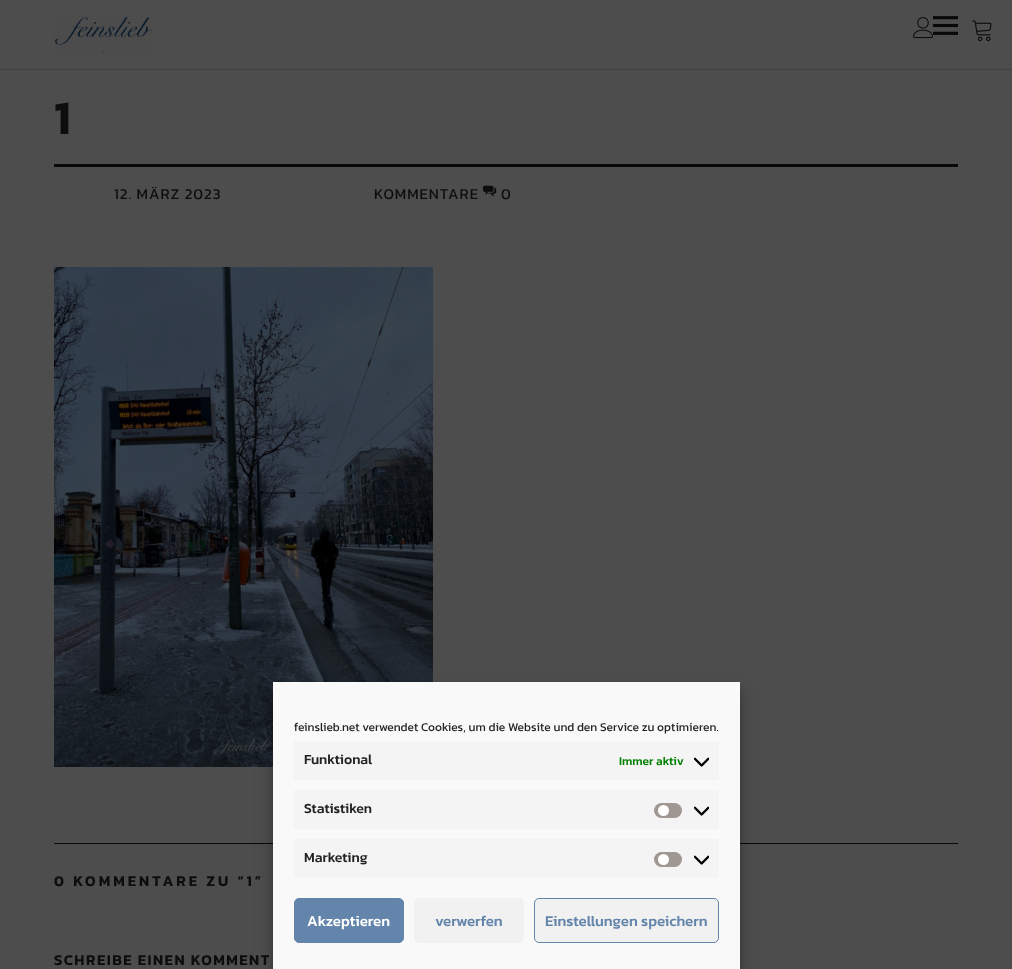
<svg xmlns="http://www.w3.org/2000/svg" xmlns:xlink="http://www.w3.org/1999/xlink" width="1012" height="969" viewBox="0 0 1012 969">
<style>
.cls-1{font:600 48px Kanit;fill:#0d0d0d}
.cls-2{font:15px Kanit;letter-spacing:1px;fill:#0d0d0d}
.cls-3{font:600 15px Kanit;letter-spacing:3px;fill:#0d0d0d}
.cls-4{font:600 15px Kanit;letter-spacing:1.5px;fill:#0d0d0d}
.cls-5{font:12px Kanit;fill:#232323}
.cls-6{font:500 14px Kanit;fill:#232323}
.cls-7{font:500 12px Kanit;fill:#008000}
.cls-8{font:500 15px Kanit;fill:#ffffff}
.cls-9{font:500 15px Kanit;fill:#6385ab}
</style>
<rect width="100%" height="100%" fill="#4d4d4d"/>
<rect fill="#424242" x="0" y="69" width="1012" height="1"/>
<image xlink:href="image0.png" x="55" y="16" width="98" height="38"/>
<image xlink:href="image1.png" x="933" y="16" width="25" height="19"/>
<image xlink:href="image2.png" x="913" y="17" width="20" height="22"/>
<image xlink:href="image3.png" x="972" y="20" width="20" height="22"/>
<rect fill="#080808" x="54" y="164" width="904" height="3"/>
<image xlink:href="image4.png" x="483" y="185" width="14" height="12"/>
<image xlink:href="image5.png" x="54" y="267" width="379" height="500"/>
<rect fill="#080808" x="54" y="843" width="904" height="1"/>
<rect fill="#000000" fill-opacity="0.23" filter="blur(3px)" x="273" y="688" width="467" height="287"/>
<rect fill="#000000" fill-opacity="0.19" filter="blur(10px)" x="273" y="692" width="467" height="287"/>
<rect fill="#f9f9f9" x="273" y="682" width="467" height="287"/>
<rect fill="#f4f4f4" x="294" y="741" width="425" height="39"/>
<image xlink:href="image6.png" x="694" y="757" width="15" height="10"/>
<rect fill="#f4f4f4" x="294" y="790" width="425" height="39"/>
<rect fill="#a09793" x="654" y="803" width="28" height="15" rx="7.5"/>
<circle fill="#ffffff" cx="663.5" cy="810.5" r="5.5"/>
<image xlink:href="image6.png" x="694" y="806" width="15" height="10"/>
<rect fill="#f4f4f4" x="294" y="839" width="425" height="39"/>
<rect fill="#a09793" x="654" y="852" width="28" height="15" rx="7.5"/>
<circle fill="#ffffff" cx="663.5" cy="859.5" r="5.5"/>
<image xlink:href="image6.png" x="694" y="855" width="15" height="10"/>
<rect fill="#6385ab" stroke="#6385ab" x="294.5" y="898.5" width="109" height="44" rx="4.5"/>
<rect fill="#f1f1f1" x="414" y="898" width="110" height="45" rx="5"/>
<rect fill="#f1f1f1" stroke="#6385ab" x="534.5" y="898.5" width="184" height="44" rx="4.5"/>
<text class="cls-1" x="54" y="134">1</text>
<text class="cls-2" x="114" y="199">12. MÄRZ 2023</text>
<text class="cls-2" x="374" y="199">KOMMENTARE</text>
<text class="cls-2" x="501" y="199">0</text>
<text class="cls-3" x="54" y="886">0 KOMMENTARE ZU “1”</text>
<text class="cls-4" x="54" y="965">SCHREIBE EINEN KOMMENT</text>
<text class="cls-5" x="294" y="731">feinslieb.net verwendet Cookies, um die Website und den Service zu optimieren.</text>
<text class="cls-6" x="304" y="764">Funktional</text>
<text class="cls-7" x="619" y="765">Immer aktiv</text>
<text class="cls-6" x="304" y="813">Statistiken</text>
<text class="cls-6" x="304" y="862">Marketing</text>
<text class="cls-8" x="307" y="926">Akzeptieren</text>
<text class="cls-9" x="435" y="926">verwerfen</text>
<text class="cls-9" x="545" y="926">Einstellungen speichern</text>
</svg>
